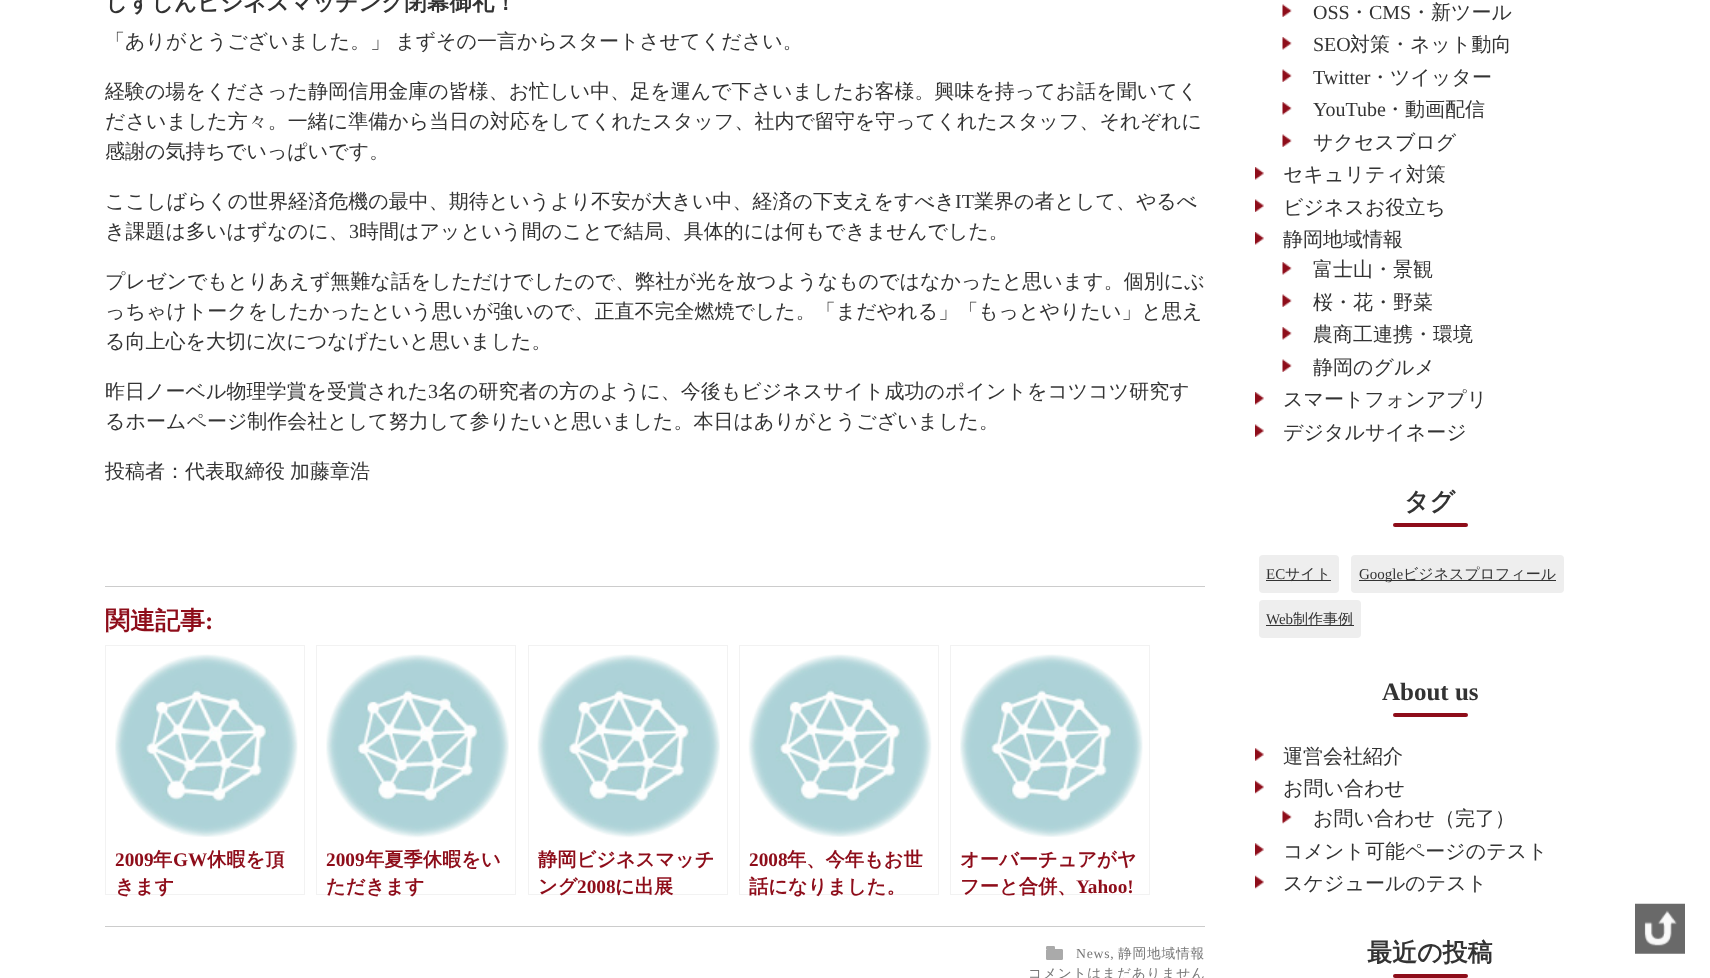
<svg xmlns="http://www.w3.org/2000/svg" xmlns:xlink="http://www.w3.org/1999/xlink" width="1710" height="978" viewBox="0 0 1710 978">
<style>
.cls-1{font:bold 22.5px WenQuanYi Zen Hei;fill:#333333}
.cls-2{font:500 20px WenQuanYi Zen Hei;fill:#333333}
.cls-3{font:20px Liberation Serif;fill:#333333}
.cls-4{font:bold 25px WenQuanYi Zen Hei;fill:#8e0d1a}
.cls-5{font:bold 25px Liberation Serif;fill:#8e0d1a}
.cls-6{font:bold 19.25px Liberation Serif;fill:#8e0d1a}
.cls-7{font:bold 19.25px WenQuanYi Zen Hei;fill:#8e0d1a}
.cls-8{font:13.75px Liberation Serif;letter-spacing:0.75px;fill:#777777}
.cls-9{font:500 13.75px WenQuanYi Zen Hei;letter-spacing:0.75px;fill:#777777}
.cls-10{font:bold 25px WenQuanYi Zen Hei;fill:#333333}
.cls-11{font:15px Liberation Serif;fill:#333333}
.cls-12{font:500 15px WenQuanYi Zen Hei;fill:#333333}
.cls-13{font:bold 25px Liberation Serif;fill:#333333}
</style>
<rect width="100%" height="100%" fill="#ffffff"/>
<rect fill="#cccccc" x="105" y="586" width="1100" height="1"/>
<rect fill="none" stroke="#f2f2f2" x="105.5" y="645.5" width="199" height="249"/>
<image xlink:href="image0.png" x="115" y="654" width="183" height="183"/>
<rect fill="none" stroke="#f2f2f2" x="316.5" y="645.5" width="199" height="249"/>
<image xlink:href="image1.png" x="326" y="654" width="183" height="184"/>
<rect fill="none" stroke="#f2f2f2" x="528.5" y="645.5" width="199" height="249"/>
<image xlink:href="image2.png" x="537" y="654" width="183" height="184"/>
<rect fill="none" stroke="#f2f2f2" x="739.5" y="645.5" width="199" height="249"/>
<image xlink:href="image3.png" x="748" y="654" width="184" height="183"/>
<rect fill="none" stroke="#f2f2f2" x="950.5" y="645.5" width="199" height="249"/>
<image xlink:href="image0.png" x="960" y="654" width="183" height="183"/>
<rect fill="#cccccc" x="105" y="926" width="1100" height="1"/>
<rect fill="#aaaaaa" stroke="#aaaaaa" x="1046.5" y="949.5" width="16" height="10" rx="0.5"/>
<path fill="#aaaaaa" d="M1047.5 946H1053.5C1054.5 946 1055 946.5 1055 947.5V949H1046V947.5C1046 946.5 1046.5 946 1047.5 946Z"/>
<image xlink:href="image4.png" x="1282" y="4" width="10" height="13"/>
<image xlink:href="image5.png" x="1282" y="37" width="10" height="13"/>
<image xlink:href="image6.png" x="1282" y="69" width="10" height="13"/>
<image xlink:href="image5.png" x="1282" y="102" width="10" height="13"/>
<image xlink:href="image4.png" x="1282" y="134" width="10" height="13"/>
<image xlink:href="image7.png" x="1255" y="167" width="9" height="13"/>
<image xlink:href="image8.png" x="1255" y="199" width="9" height="13"/>
<image xlink:href="image7.png" x="1255" y="232" width="9" height="13"/>
<image xlink:href="image5.png" x="1282" y="262" width="10" height="13"/>
<image xlink:href="image4.png" x="1282" y="294" width="10" height="13"/>
<image xlink:href="image5.png" x="1282" y="327" width="10" height="13"/>
<image xlink:href="image4.png" x="1282" y="359" width="10" height="13"/>
<image xlink:href="image7.png" x="1255" y="392" width="9" height="13"/>
<image xlink:href="image8.png" x="1255" y="424" width="9" height="13"/>
<rect fill="#8e0d1a" x="1393" y="523" width="75" height="4" rx="2"/>
<rect fill="#eeeeee" x="1259" y="555" width="80" height="38" rx="4"/>
<rect fill="#333333" x="1266" y="580" width="65" height="1"/>
<rect fill="#eeeeee" x="1351" y="555" width="213" height="38" rx="4"/>
<rect fill="#333333" x="1359" y="580" width="197" height="1"/>
<rect fill="#eeeeee" x="1259" y="600" width="102" height="38" rx="4"/>
<rect fill="#333333" x="1266" y="625" width="88" height="1"/>
<rect fill="#8e0d1a" x="1393" y="713" width="75" height="4" rx="2"/>
<image xlink:href="image9.png" x="1255" y="748" width="9" height="13"/>
<image xlink:href="image10.png" x="1255" y="780" width="9" height="14"/>
<image xlink:href="image11.png" x="1282" y="810" width="10" height="14"/>
<image xlink:href="image12.png" x="1255" y="843" width="9" height="13"/>
<image xlink:href="image10.png" x="1255" y="875" width="9" height="14"/>
<rect fill="#8e0d1a" x="1393" y="974" width="75" height="4" rx="2"/>
<image xlink:href="image13.png" x="1635" y="903" width="50" height="51"/>
<text class="cls-1" x="105" y="10">しずしんビジネスマッチング閉幕御礼！</text>
<text class="cls-2" x="105" y="48" word-spacing="-1">「ありがとうございました。」 まずその一言からスタートさせてください。</text>
<text class="cls-2"><tspan x="105" y="98">経験の場をくださった静岡信用金庫の皆様、お忙しい中、足を運んで下さいましたお客様。興味を持ってお話を聞いてく</tspan><tspan x="105" y="128">ださいました方々。一緒に準備から当日の対応をしてくれたスタッフ、社内で留守を守ってくれたスタッフ、それぞれに</tspan><tspan x="105" y="158">感謝の気持ちでいっぱいです。</tspan></text>
<text class="cls-2" x="105" y="208">ここしばらくの世界経済危機の最中、期待というより不安が大きい中、経済の下支えをすべき</text>
<text class="cls-3" x="955" y="208">IT</text>
<text class="cls-2" x="974" y="208">業界の者として、やるべ</text>
<text class="cls-2" x="105" y="238">き課題は多いはずなのに、</text>
<text class="cls-3" x="349" y="238">3</text>
<text class="cls-2" x="359" y="238">時間はアッという間のことで結局、具体的には何もできませんでした。</text>
<text class="cls-2"><tspan x="105" y="288">プレゼンでもとりあえず無難な話をしただけでしたので、弊社が光を放つようなものではなかったと思います。個別にぶ</tspan><tspan x="105" y="318">っちゃけトークをしたかったという思いが強いので、正直不完全燃焼でした。「まだやれる」「もっとやりたい」と思え</tspan><tspan x="105" y="348">る向上心を大切に次につなげたいと思いました。</tspan></text>
<text class="cls-2" x="105" y="398">昨日ノーベル物理学賞を受賞された</text>
<text class="cls-3" x="428" y="398">3</text>
<text class="cls-2" x="438" y="398">名の研究者の方のように、今後もビジネスサイト成功のポイントをコツコツ研究す</text>
<text class="cls-2" x="105" y="428">るホームページ制作会社として努力して参りたいと思いました。本日はありがとうございました。</text>
<text class="cls-2" x="105" y="478" word-spacing="-1">投稿者：代表取締役 加藤章浩</text>
<text class="cls-4" x="105" y="629">関連記事</text>
<text class="cls-5" x="205" y="629">:</text>
<text class="cls-6" x="115" y="866">2009</text>
<text class="cls-7" x="153" y="866">年</text>
<text class="cls-6" x="173" y="866">GW</text>
<text class="cls-7" x="207" y="866">休暇を頂</text>
<text class="cls-7" x="115" y="893">きます</text>
<text class="cls-6" x="326" y="866">2009</text>
<text class="cls-7" x="365" y="866">年夏季休暇をい</text>
<text class="cls-7" x="326" y="893">ただきます</text>
<text class="cls-7"><tspan x="538" y="866">静岡ビジネスマッチ</tspan><tspan x="538" y="893">ング</tspan></text>
<text class="cls-6" x="577" y="893">2008</text>
<text class="cls-7" x="615" y="893">に出展</text>
<text class="cls-6" x="749" y="866">2008</text>
<text class="cls-7" x="787" y="866">年、今年もお世</text>
<text class="cls-7" x="749" y="893">話になりました。</text>
<text class="cls-7"><tspan x="960" y="866">オーバーチュアがヤ</tspan><tspan x="960" y="893">フーと合併、</tspan></text>
<text class="cls-6" x="1076" y="893">Yahoo!</text>
<text class="cls-8" x="1076" y="958">News,</text>
<text class="cls-9" x="1118" y="958">静岡地域情報</text>
<text class="cls-9" x="1028" y="978">コメントはまだありません</text>
<text class="cls-3" x="1313" y="19">OSS</text>
<text class="cls-2" x="1349" y="19">・</text>
<text class="cls-3" x="1369" y="19">CMS</text>
<text class="cls-2" x="1411" y="19">・新ツール</text>
<text class="cls-3" x="1313" y="51">SEO</text>
<text class="cls-2" x="1350" y="51">対策・ネット動向</text>
<text class="cls-3" x="1313" y="84">Twitter</text>
<text class="cls-2" x="1370" y="84">・ツイッター</text>
<text class="cls-3" x="1313" y="116">YouTube</text>
<text class="cls-2" x="1385" y="116">・動画配信</text>
<text class="cls-2" x="1313" y="149">サクセスブログ</text>
<text class="cls-2"><tspan x="1283" y="181">セキュリティ対策</tspan><tspan x="1283" y="214">ビジネスお役立ち</tspan><tspan x="1283" y="246">静岡地域情報</tspan></text>
<text class="cls-2"><tspan x="1313" y="276">富士山・景観</tspan><tspan x="1313" y="309">桜・花・野菜</tspan><tspan x="1313" y="341">農商工連携・環境</tspan><tspan x="1313" y="374">静岡のグルメ</tspan></text>
<text class="cls-2"><tspan x="1283" y="406">スマートフォンアプリ</tspan><tspan x="1283" y="439">デジタルサイネージ</tspan></text>
<text class="cls-10" x="1404" y="510">タグ</text>
<text class="cls-11" x="1266" y="579">EC</text>
<text class="cls-12" x="1285" y="579">サイト</text>
<text class="cls-11" x="1359" y="579">Google</text>
<text class="cls-12" x="1403" y="579">ビジネスプロフィール</text>
<text class="cls-11" x="1266" y="624">Web</text>
<text class="cls-12" x="1293" y="624">制作事例</text>
<text class="cls-13" x="1382" y="700">About us</text>
<text class="cls-2"><tspan x="1283" y="763">運営会社紹介</tspan><tspan x="1283" y="795">お問い合わせ</tspan></text>
<text class="cls-2" x="1313" y="825">お問い合わせ（完了）</text>
<text class="cls-2"><tspan x="1283" y="858">コメント可能ページのテスト</tspan><tspan x="1283" y="890">スケジュールのテスト</tspan></text>
<text class="cls-10" x="1367" y="961">最近の投稿</text>
</svg>
